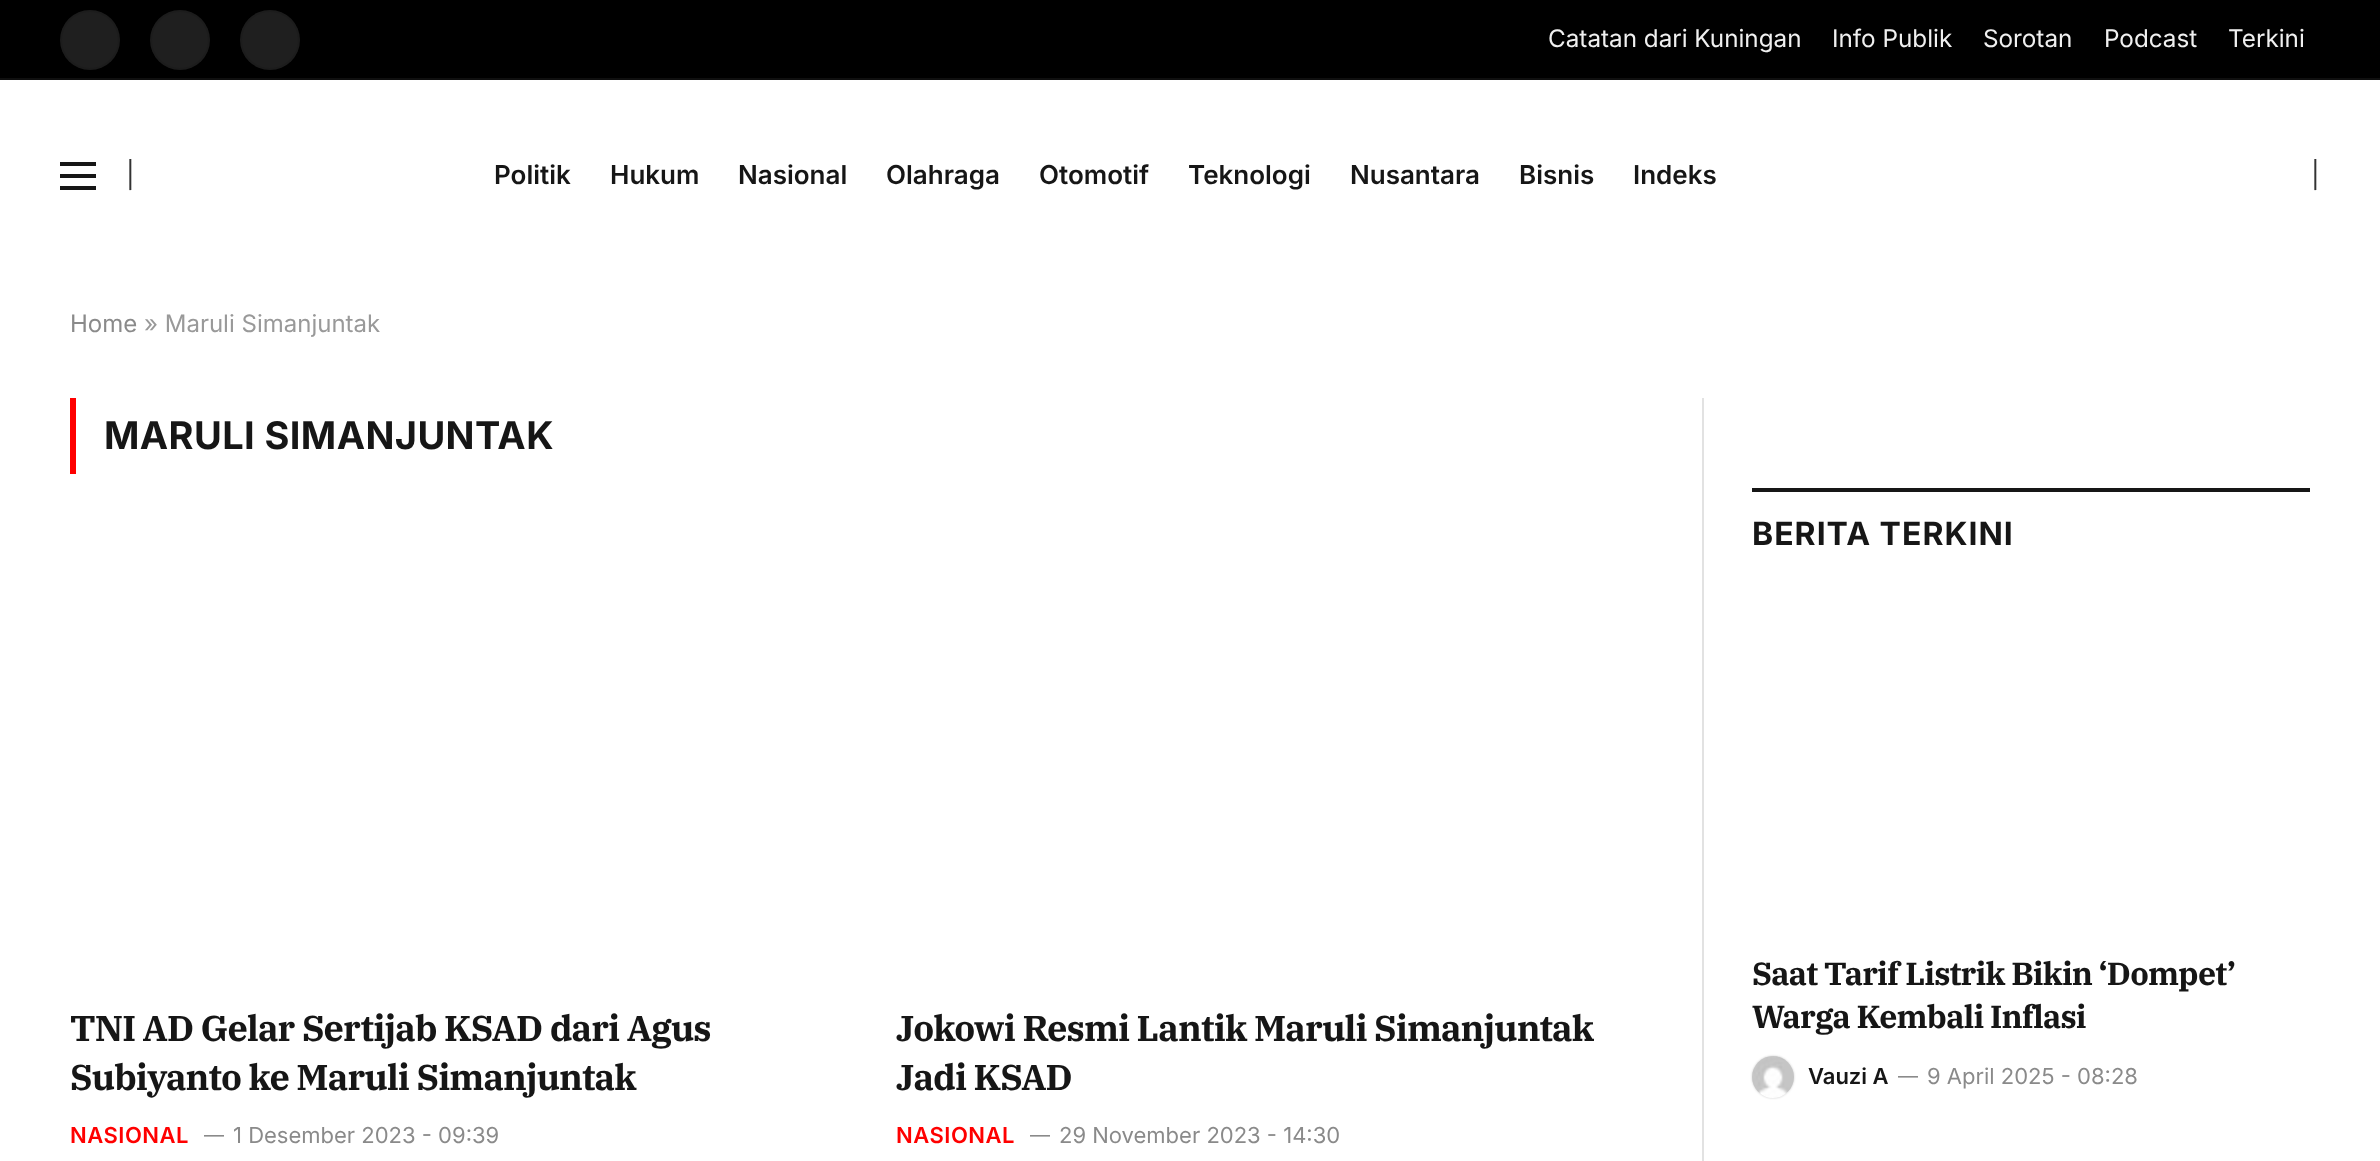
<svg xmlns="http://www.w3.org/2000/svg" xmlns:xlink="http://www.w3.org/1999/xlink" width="2380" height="1161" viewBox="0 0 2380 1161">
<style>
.cls-1{font:24.25px Inter;fill:#f0f0f0}
.cls-2{font:26px Inter;fill:#333333}
.cls-3{font:600 26px Inter;fill:#161616}
.cls-4{font:24px Inter;fill:#8a8a8a}
.cls-5{font:24px Inter;fill:#999999}
.cls-6{font:bold 38px Inter;letter-spacing:0.4px;fill:#161616}
.cls-7{font:bold 36px IBM Plex Serif;letter-spacing:-0.9px;fill:#161616}
.cls-8{font:600 22px Inter;letter-spacing:0.5px;fill:#ff0000}
.cls-9{font:20px Inter;fill:#8a8a8a}
.cls-10{font:22px Inter;fill:#8a8a8a}
.cls-11{font:bold 32px Inter;letter-spacing:1px;fill:#161616}
.cls-12{font:bold 32px IBM Plex Serif;letter-spacing:-0.8px;fill:#161616}
.cls-13{font:600 22px Inter;fill:#161616}
</style>
<rect width="100%" height="100%" fill="#ffffff"/>
<rect fill="#000000" x="0" y="0" width="2380" height="78"/>
<rect fill="#0f0f0f" x="0" y="78" width="2380" height="2"/>
<circle fill="#1f1f1f" cx="90" cy="40" r="30"/>
<circle fill="none" stroke="#000000" stroke-opacity="0.09" stroke-width="2" cx="90" cy="40" r="29"/>
<circle fill="#1f1f1f" cx="180" cy="40" r="30"/>
<circle fill="none" stroke="#000000" stroke-opacity="0.09" stroke-width="2" cx="180" cy="40" r="29"/>
<circle fill="#1f1f1f" cx="270" cy="40" r="30"/>
<circle fill="none" stroke="#000000" stroke-opacity="0.09" stroke-width="2" cx="270" cy="40" r="29"/>
<rect fill="#161616" x="60" y="186" width="36" height="4"/>
<rect fill="#161616" x="60" y="162" width="36" height="4"/>
<rect fill="#161616" x="60" y="174" width="36" height="4"/>
<rect fill="#ff0000" x="70" y="398" width="6" height="76"/>
<rect fill="#e2e2e2" x="1702" y="398" width="2" height="763"/>
<rect fill="#161616" x="1752" y="488" width="558" height="4"/>
<rect fill="#000000" fill-opacity="0.2" filter="blur(1px)" x="1752" y="1056" width="42" height="42" rx="21"/>
<image xlink:href="image0.png" x="1752" y="1056" width="42" height="42"/>
<text class="cls-1" x="1548" y="47">Catatan dari Kuningan</text>
<text class="cls-1" x="1832" y="47">Info Publik</text>
<text class="cls-1" x="1983" y="47">Sorotan</text>
<text class="cls-1" x="2104" y="47">Podcast</text>
<text class="cls-1" x="2228" y="47">Terkini</text>
<text class="cls-2" x="126" y="184">|</text>
<text class="cls-3" x="494" y="184">Politik</text>
<text class="cls-3" x="610" y="184">Hukum</text>
<text class="cls-3" x="738" y="184">Nasional</text>
<text class="cls-3" x="886" y="184">Olahraga</text>
<text class="cls-3" x="1039" y="184">Otomotif</text>
<text class="cls-3" x="1188" y="184">Teknologi</text>
<text class="cls-3" x="1350" y="184">Nusantara</text>
<text class="cls-3" x="1519" y="184">Bisnis</text>
<text class="cls-3" x="1633" y="184">Indeks</text>
<text class="cls-2" x="2311" y="184">|</text>
<text class="cls-4" x="70" y="332">Home</text>
<text class="cls-5" x="144" y="332">» Maruli Simanjuntak</text>
<text class="cls-6" x="104" y="449">MARULI SIMANJUNTAK</text>
<text class="cls-7"><tspan x="70" y="1041">TNI AD Gelar Sertijab KSAD dari Agus</tspan><tspan x="70" y="1090">Subiyanto ke Maruli Simanjuntak</tspan></text>
<text class="cls-8" x="70" y="1143">NASIONAL</text>
<text class="cls-9" x="204" y="1142">—</text>
<text class="cls-10" x="233" y="1143">1 Desember 2023 - 09:39</text>
<text class="cls-7"><tspan x="896" y="1041">Jokowi Resmi Lantik Maruli Simanjuntak</tspan><tspan x="896" y="1090">Jadi KSAD</tspan></text>
<text class="cls-8" x="896" y="1143">NASIONAL</text>
<text class="cls-9" x="1030" y="1142">—</text>
<text class="cls-10" x="1059" y="1143">29 November 2023 - 14:30</text>
<text class="cls-11" x="1752" y="545">BERITA TERKINI</text>
<text class="cls-12"><tspan x="1752" y="985">Saat Tarif Listrik Bikin ‘Dompet’</tspan><tspan x="1752" y="1028">Warga Kembali Inflasi</tspan></text>
<text class="cls-13" x="1808" y="1084">Vauzi A</text>
<text class="cls-9" x="1898" y="1083">—</text>
<text class="cls-10" x="1927" y="1084">9 April 2025 - 08:28</text>
</svg>
